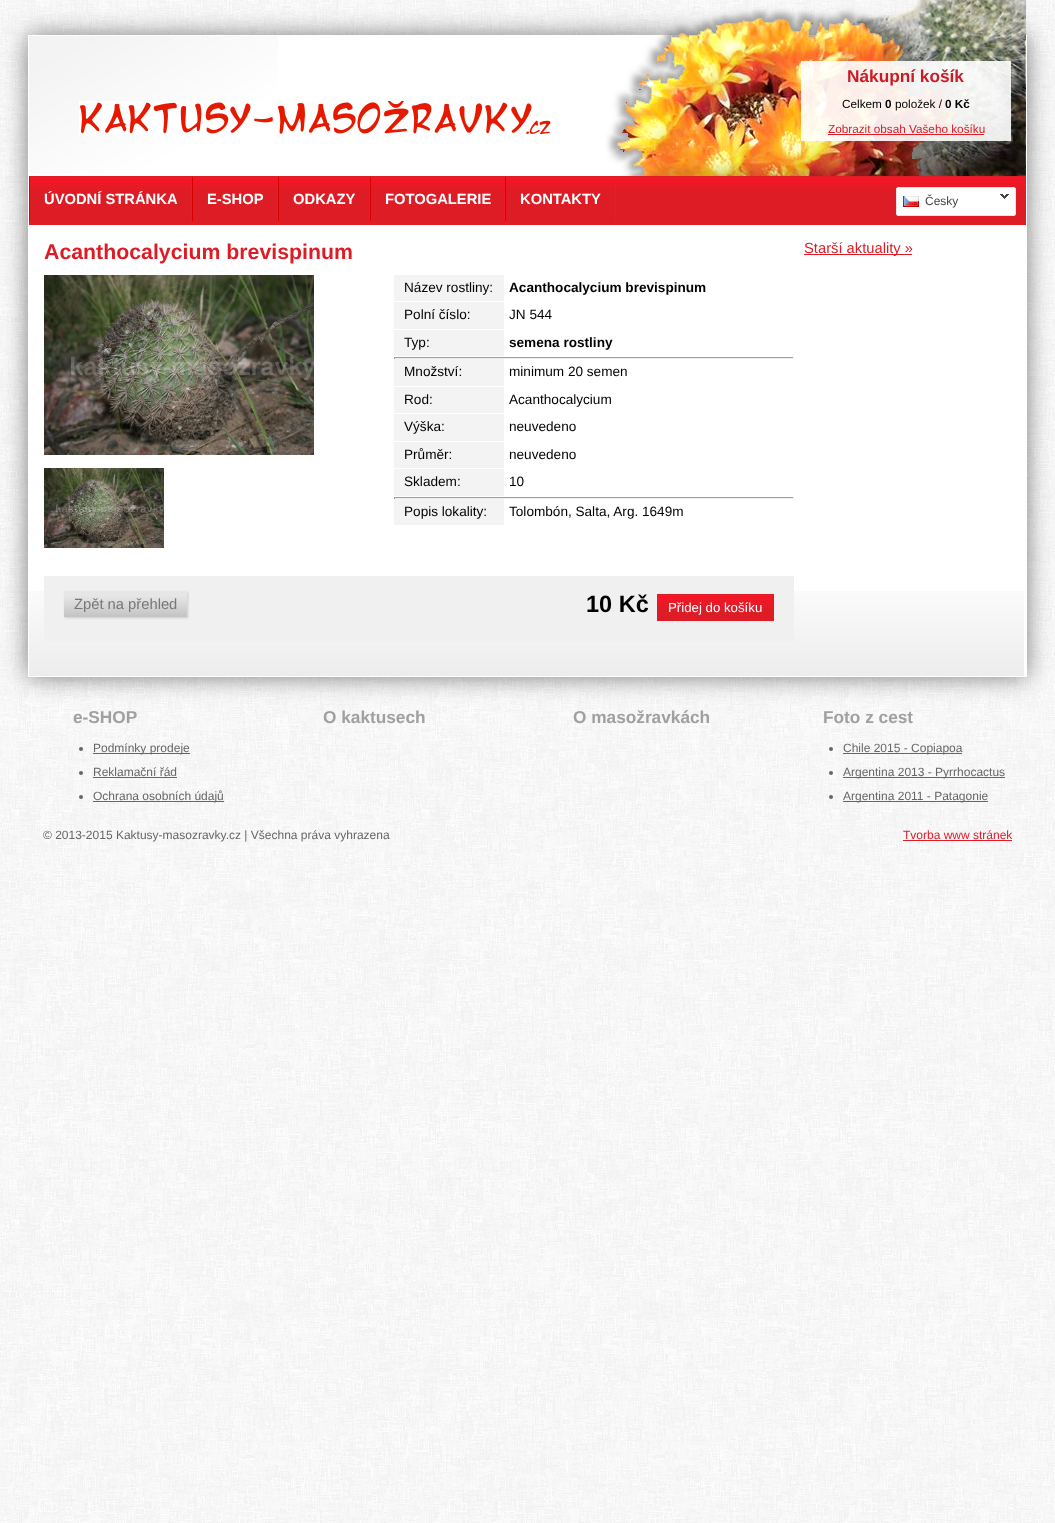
<svg xmlns="http://www.w3.org/2000/svg" xmlns:xlink="http://www.w3.org/1999/xlink" width="1055" height="1523" viewBox="0 0 1055 1523">
<style>
.cls-1{font:bold 17.25px Liberation Sans;fill:#ca1c26}
.cls-2{font:11.75px Liberation Sans;fill:#000000}
.cls-3{font:bold 11.75px Liberation Sans;fill:#000000}
.cls-4{font:11.75px Liberation Sans;fill:#de1c26}
.cls-5{font:bold 14.75px Liberation Sans;fill:#ffffff}
.cls-6{font:12px Liberation Sans;fill:#444444}
.cls-7{font:bold 21.3px Liberation Sans;fill:#de1c26}
.cls-8{font:13.6px Liberation Sans;fill:#000000}
.cls-9{font:bold 13.6px Liberation Sans;fill:#000000}
.cls-10{font:14.75px Liberation Sans;fill:#777777}
.cls-11{font:bold 23.5px Liberation Sans;fill:#000000}
.cls-12{font:13.25px Liberation Sans;fill:#ffffff}
.cls-13{font:14.75px Liberation Sans;fill:#de1c26}
.cls-14{font:bold 17.25px Liberation Sans;fill:#a0a0a0}
.cls-15{font:12px Liberation Sans;fill:#666666}
.cls-16{font:12px Liberation Sans;fill:#de1c26}
</style>
<rect width="100%" height="100%" fill="#ffffff"/>
<image xlink:href="image0.png" x="0" y="0" width="1055" height="1523"/>
<rect fill="#000000" fill-opacity="0.5" filter="blur(12.5px)" x="28" y="35" width="999" height="642"/>
<rect fill="#ffffff" x="28" y="35" width="999" height="642"/>
<image xlink:href="image1.png" x="29" y="36" width="249" height="138"/>
<image xlink:href="image2.png" x="606" y="0" width="420" height="176"/>
<image xlink:href="image3.png" x="79" y="101" width="472" height="34"/>
<rect fill="#ffffff" fill-opacity="0.9" x="801" y="61" width="210" height="80"/>
<rect fill="#de1c26" x="828" y="134" width="156" height="1"/>
<image xlink:href="image4.png" x="29" y="177" width="997" height="48"/>
<rect fill="#de1c26" x="29" y="176" width="997" height="1"/>
<rect fill="#f71526" x="191" y="177" width="1" height="44"/>
<rect fill="#d90000" x="29" y="177" width="1" height="44"/>
<rect fill="#f71526" x="277" y="177" width="1" height="44"/>
<rect fill="#d90000" x="192" y="177" width="1" height="44"/>
<rect fill="#f71526" x="369" y="177" width="1" height="44"/>
<rect fill="#d90000" x="278" y="177" width="1" height="44"/>
<rect fill="#f71526" x="504" y="177" width="1" height="44"/>
<rect fill="#d90000" x="370" y="177" width="1" height="44"/>
<rect fill="#f71526" x="615" y="177" width="1" height="44"/>
<rect fill="#d90000" x="505" y="177" width="1" height="44"/>
<rect fill="#ffffff" x="896" y="187" width="120" height="29" rx="3"/>
<image xlink:href="image5.png" x="903" y="196" width="16" height="11"/>
<rect fill="none" stroke="#e5e5e5" x="896.5" y="187.5" width="119" height="28" rx="2.5"/>
<image xlink:href="image6.png" x="1000" y="194" width="9" height="5"/>
<rect fill="#f3f3f3" x="394" y="275" width="110" height="26"/>
<rect fill="#f3f3f3" x="394" y="302" width="110" height="27"/>
<rect fill="#f3f3f3" x="394" y="330" width="110" height="26"/>
<rect fill="#9f9f9f" x="394" y="357" width="400" height="1"/>
<rect fill="#eeeeee" x="793" y="357" width="1" height="2"/>
<rect fill="#eeeeee" x="394" y="358" width="400" height="1"/>
<rect fill="#9f9f9f" x="394" y="357" width="1" height="2"/>
<rect fill="#f3f3f3" x="394" y="359" width="110" height="27"/>
<rect fill="#f3f3f3" x="394" y="387" width="110" height="26"/>
<rect fill="#f3f3f3" x="394" y="414" width="110" height="27"/>
<rect fill="#f3f3f3" x="394" y="442" width="110" height="26"/>
<rect fill="#f3f3f3" x="394" y="469" width="110" height="27"/>
<rect fill="#9f9f9f" x="394" y="497" width="400" height="1"/>
<rect fill="#eeeeee" x="793" y="497" width="1" height="2"/>
<rect fill="#eeeeee" x="394" y="498" width="400" height="1"/>
<rect fill="#9f9f9f" x="394" y="497" width="1" height="2"/>
<rect fill="#f3f3f3" x="394" y="499" width="110" height="26"/>
<image xlink:href="image7.png" x="44" y="275" width="270" height="180"/>
<image xlink:href="image8.png" x="44" y="468" width="120" height="80"/>
<image xlink:href="image11.png" x="29" y="591" width="995" height="85"/>
<rect fill="#f0f0f0" x="44" y="576" width="750" height="65"/>
<rect fill="#cccccc" filter="blur(1px)" x="65" y="592" width="123" height="26"/>
<image xlink:href="image9.png" x="64" y="591" width="123" height="26"/>
<image xlink:href="image10.png" x="658" y="595" width="115" height="25"/>
<rect fill="none" stroke="#de1c26" x="657.5" y="594.5" width="116" height="26"/>
<rect fill="#de1c26" x="804" y="254" width="108" height="1"/>
<circle fill="#666666" cx="81" cy="749" r="2"/>
<rect fill="#666666" x="93" y="753" width="97" height="1"/>
<circle fill="#666666" cx="81" cy="773" r="2"/>
<rect fill="#666666" x="93" y="777" width="84" height="1"/>
<circle fill="#666666" cx="81" cy="797" r="2"/>
<rect fill="#666666" x="93" y="801" width="131" height="1"/>
<circle fill="#666666" cx="831" cy="749" r="2"/>
<rect fill="#666666" x="843" y="753" width="119" height="1"/>
<circle fill="#666666" cx="831" cy="773" r="2"/>
<rect fill="#666666" x="843" y="777" width="162" height="1"/>
<circle fill="#666666" cx="831" cy="797" r="2"/>
<rect fill="#666666" x="843" y="801" width="145" height="1"/>
<rect fill="#de1c26" x="903" y="840" width="109" height="1"/>
<text class="cls-1" x="847" y="82">Nákupní košík</text>
<text class="cls-2" x="842" y="108">Celkem</text>
<text class="cls-3" x="885" y="108">0</text>
<text class="cls-2" x="895" y="108">položek /</text>
<text class="cls-3" x="945" y="108">0 Kč</text>
<text class="cls-4" x="828" y="133">Zobrazit obsah Vašeho košíku</text>
<text class="cls-5" x="44" y="204">ÚVODNÍ STRÁNKA</text>
<text class="cls-5" x="207" y="204">E-SHOP</text>
<text class="cls-5" x="293" y="204">ODKAZY</text>
<text class="cls-5" x="385" y="204">FOTOGALERIE</text>
<text class="cls-5" x="520" y="204">KONTAKTY</text>
<text class="cls-6" x="925" y="205">Česky</text>
<text class="cls-7" x="44" y="259">Acanthocalycium brevispinum</text>
<text class="cls-8" x="404" y="292">Název rostliny:</text>
<text class="cls-9" x="509" y="292">Acanthocalycium brevispinum</text>
<text class="cls-8" x="404" y="319">Polní číslo:</text>
<text class="cls-8" x="509" y="319">JN 544</text>
<text class="cls-8" x="404" y="347">Typ:</text>
<text class="cls-9" x="509" y="347">semena rostliny</text>
<text class="cls-8" x="404" y="376">Množství:</text>
<text class="cls-8" x="509" y="376">minimum 20 semen</text>
<text class="cls-8" x="404" y="404">Rod:</text>
<text class="cls-8" x="509" y="404">Acanthocalycium</text>
<text class="cls-8" x="404" y="431">Výška:</text>
<text class="cls-8" x="509" y="431">neuvedeno</text>
<text class="cls-8" x="404" y="459">Průměr:</text>
<text class="cls-8" x="509" y="459">neuvedeno</text>
<text class="cls-8" x="404" y="486">Skladem:</text>
<text class="cls-8" x="509" y="486">10</text>
<text class="cls-8" x="404" y="516">Popis lokality:</text>
<text class="cls-8" x="509" y="516">Tolombón, Salta, Arg. 1649m</text>
<text class="cls-10" x="74" y="609">Zpět na přehled</text>
<text class="cls-11" x="586" y="612">10 Kč</text>
<text class="cls-12" x="668" y="612">Přidej do košíku</text>
<text class="cls-13" x="804" y="253">Starší aktuality »</text>
<text class="cls-14" x="73" y="723">e-SHOP</text>
<text class="cls-15" x="93" y="752">Podmínky prodeje</text>
<text class="cls-15" x="93" y="776">Reklamační řád</text>
<text class="cls-15" x="93" y="800">Ochrana osobních údajů</text>
<text class="cls-14" x="323" y="723">O kaktusech</text>
<text class="cls-14" x="573" y="723">O masožravkách</text>
<text class="cls-14" x="823" y="723">Foto z cest</text>
<text class="cls-15" x="843" y="752">Chile 2015 - Copiapoa</text>
<text class="cls-15" x="843" y="776">Argentina 2013 - Pyrrhocactus</text>
<text class="cls-15" x="843" y="800">Argentina 2011 - Patagonie</text>
<text class="cls-15" x="43" y="839">© 2013-2015 Kaktusy-masozravky.cz | Všechna práva vyhrazena</text>
<text class="cls-16" x="903" y="839">Tvorba www stránek</text>
</svg>
